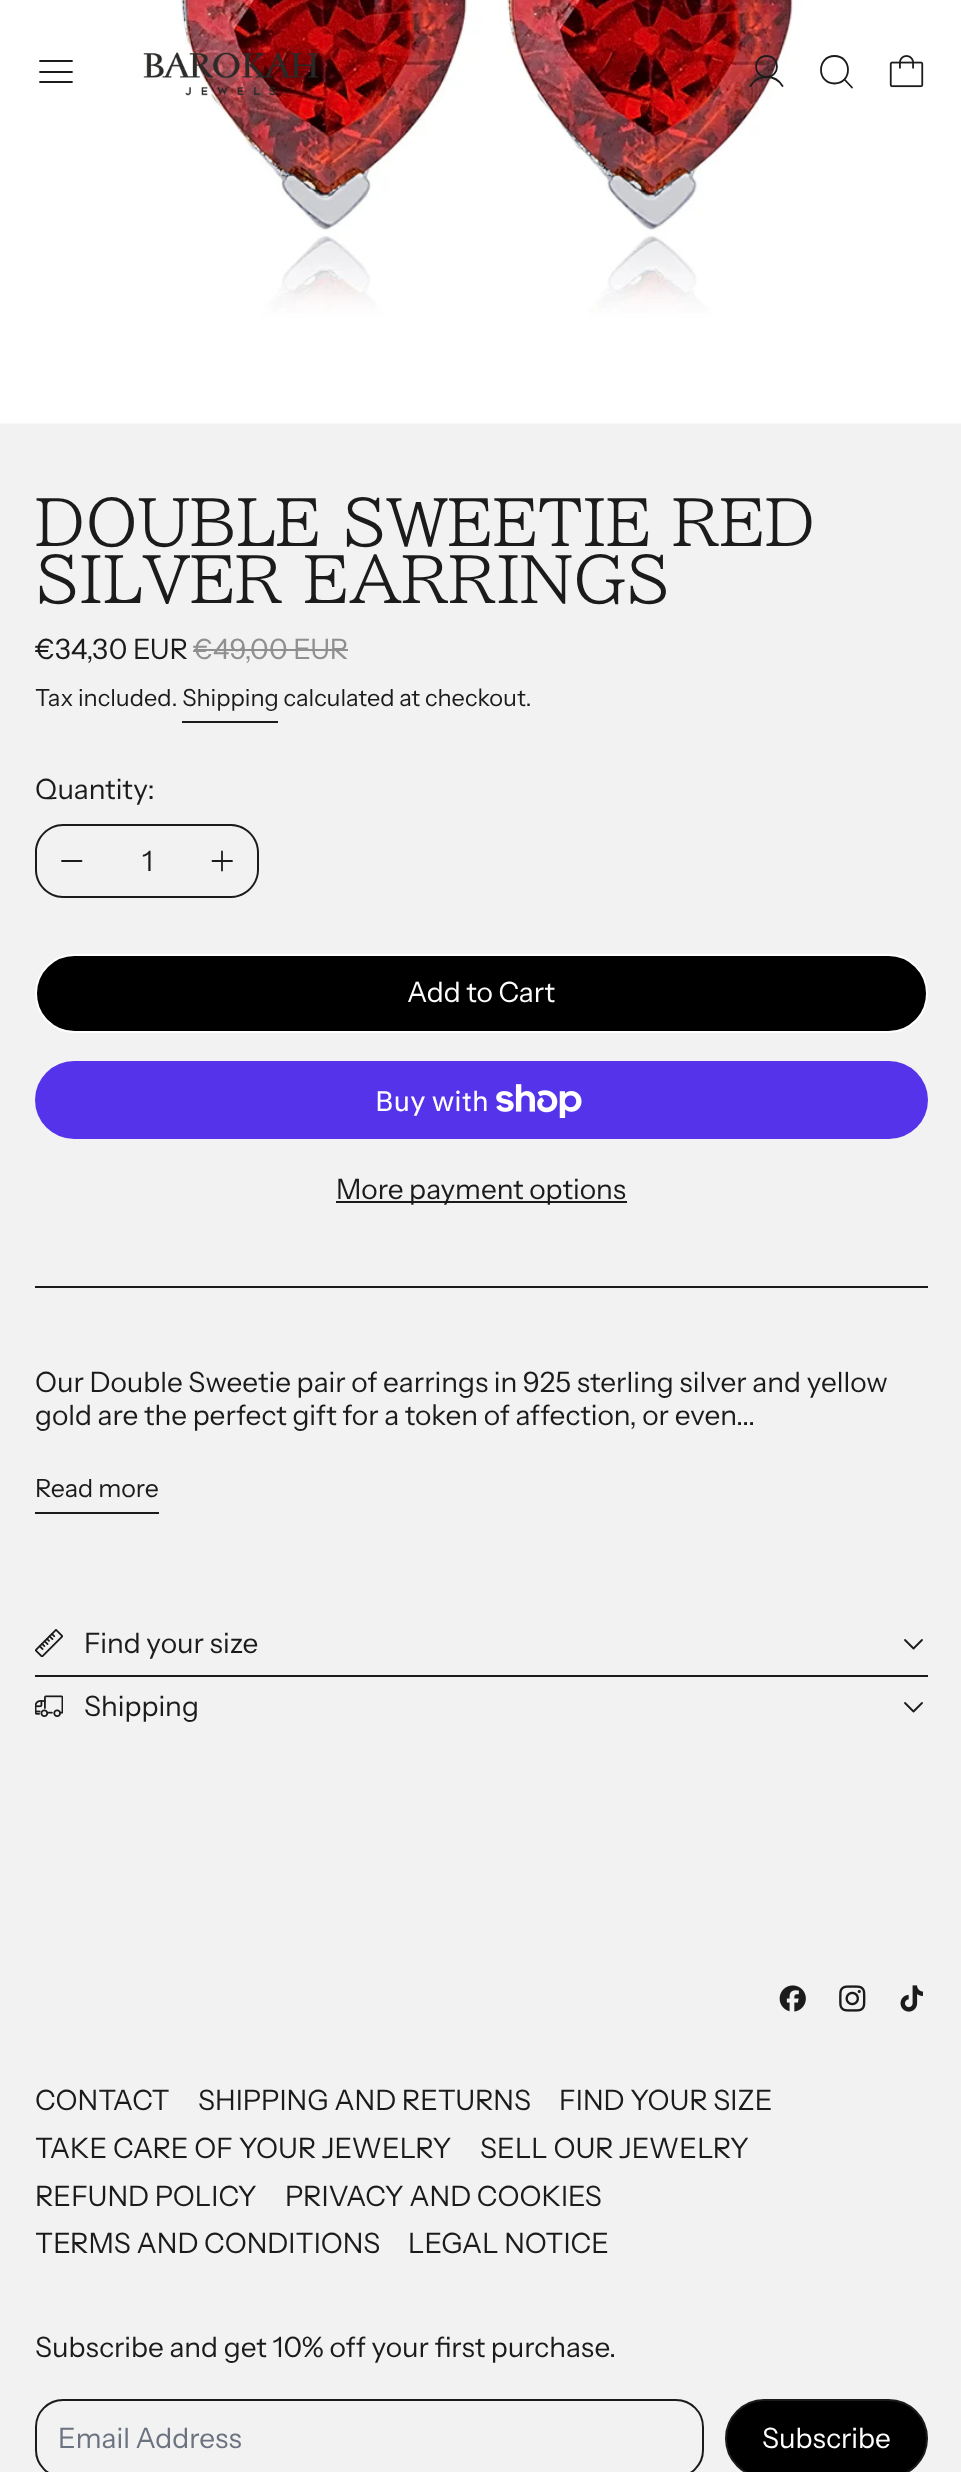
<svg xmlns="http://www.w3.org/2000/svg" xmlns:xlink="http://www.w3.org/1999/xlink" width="961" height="2472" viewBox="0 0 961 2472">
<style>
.cls-1{font:62.9px BIZ UDPMincho;fill:#1b1b1b}
.cls-2{font:28px Instrument Sans;fill:#1b1b1b}
.cls-3{font:28px Instrument Sans;fill:#8f8f8f}
.cls-4{font:23.55px Instrument Sans;fill:#1b1b1b}
.cls-5{font:28px Instrument Sans;fill:#ffffff}
.cls-6{font:28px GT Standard;fill:#ffffff}
.cls-7{font:25px Instrument Sans;fill:#1b1b1b}
.cls-8{font:28px Instrument Sans;fill:#6b7280}
</style>
<rect width="100%" height="100%" fill="#f2f2f2"/>
<image xlink:href="image2.png" x="0" y="0" width="961" height="424"/>
<path fill="none" stroke="#1b1b1b" stroke-width="1.8" stroke-linecap="round" stroke-linejoin="round" d="M40 72H72M40 61H72M40 82H72"/>
<image xlink:href="image0.png" x="143" y="52" width="176" height="44"/>
<path fill="none" stroke="#1b1b1b" stroke-width="1.8" d="M766.5 77C780.5 77 780.5 56 766.5 56C752.5 56 752.5 77 766.5 77Z"/>
<path fill="none" stroke="#1b1b1b" stroke-width="1.8" stroke-linecap="round" stroke-linejoin="round" d="M750.5 86C757.5 74 775.5 74 782.5 86"/>
<path fill="none" stroke="#1b1b1b" stroke-width="1.8" stroke-linecap="round" stroke-linejoin="round" d="M834.5 83.5C852.5 83.5 852.5 56 834.5 56C816.5 56 816.5 83.5 834.5 83.5ZM844.5 79.5L852 87.5"/>
<image xlink:href="image1.png" x="889" y="55" width="35" height="33"/>
<rect fill="#8f8f8f" x="194" y="649" width="154" height="2"/>
<rect fill="#1b1b1b" x="182" y="721" width="96" height="2"/>
<path fill="#1b1b1b" fill-rule="evenodd" d="M63 824H107V898H63C48 898 35 885 35 870V852C35 837 48 824 63 824ZM63 826H107V896H63C49 896 37 884 37 870V852C37 838 49 826 63 826Z"/>
<path fill="none" stroke="#1b1b1b" stroke-width="1.8" stroke-linecap="round" stroke-linejoin="round" d="M62 861H81.5"/>
<rect fill="#1b1b1b" x="107" y="824" width="80" height="2"/>
<rect fill="#1b1b1b" x="107" y="896" width="80" height="2"/>
<path fill="#1b1b1b" fill-rule="evenodd" d="M187 824H231C246 824 259 837 259 852V870C259 885 246 898 231 898H187ZM187 826H231C245 826 257 838 257 852V870C257 884 245 896 231 896H187Z"/>
<path fill="none" stroke="#1b1b1b" stroke-width="1.8" stroke-linecap="round" stroke-linejoin="round" d="M212.5 861H232M222 851.5V870.5"/>
<rect fill="#000000" stroke="#ffffff" stroke-width="2" x="36" y="955" width="891" height="77" rx="38.5"/>
<rect fill="#5433eb" x="35" y="1061" width="893" height="78" rx="39"/>
<image xlink:href="image3.png" x="496" y="1084" width="86" height="34"/>
<rect fill="#1b1b1b" x="336" y="1201" width="291" height="2"/>
<rect fill="#1b1b1b" x="35" y="1286" width="893" height="2"/>
<rect fill="#1b1b1b" x="35" y="1512" width="124" height="2"/>
<image xlink:href="image4.png" x="35" y="1629" width="28" height="28"/>
<path fill="none" stroke="#1b1b1b" stroke-width="1.8" stroke-linecap="round" stroke-linejoin="round" d="M922 1640L913.5 1648.5L905 1640"/>
<rect fill="#1b1b1b" x="35" y="1675" width="893" height="2"/>
<image xlink:href="image5.png" x="35" y="1695" width="28" height="23"/>
<path fill="none" stroke="#1b1b1b" stroke-width="1.8" stroke-linecap="round" stroke-linejoin="round" d="M922 1703L913.5 1711.5L905 1703"/>
<image xlink:href="image6.png" x="779" y="1985" width="27" height="27"/>
<image xlink:href="image7.png" x="839" y="1985" width="27" height="27"/>
<image xlink:href="image8.png" x="900" y="1985" width="23" height="27"/>
<rect fill="none" stroke="#1b1b1b" stroke-width="2" x="36" y="2400" width="667" height="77" rx="27"/>
<rect fill="#000000" stroke="#1b1b1b" stroke-width="2" x="726" y="2400" width="201" height="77" rx="38.5"/>
<text class="cls-1"><tspan x="35" y="546">DOUBLE SWEETIE RED</tspan><tspan x="35" y="603">SILVER EARRINGS</tspan></text>
<text class="cls-2" x="35" y="659">€34,30 EUR</text>
<text class="cls-3" x="193" y="659">€49,00 EUR</text>
<text class="cls-4" x="35" y="706">Tax included. Shipping calculated at checkout.</text>
<text class="cls-2" x="35" y="799">Quantity:</text>
<text class="cls-2" x="142" y="871">1</text>
<text class="cls-5" x="407" y="1002">Add to Cart</text>
<text class="cls-6" x="375" y="1111">Buy with</text>
<text class="cls-2" x="336" y="1199">More payment options</text>
<text class="cls-2"><tspan x="35" y="1392">Our Double Sweetie pair of earrings in 925 sterling silver and yellow</tspan><tspan x="35" y="1425">gold are the perfect gift for a token of affection, or even...</tspan></text>
<text class="cls-7" x="35" y="1497">Read more</text>
<text class="cls-2" x="84" y="1653">Find your size</text>
<text class="cls-2" x="84" y="1716">Shipping</text>
<text class="cls-2" x="35" y="2110">CONTACT</text>
<text class="cls-2" x="198" y="2110">SHIPPING AND RETURNS</text>
<text class="cls-2" x="559" y="2110">FIND YOUR SIZE</text>
<text class="cls-2" x="35" y="2158">TAKE CARE OF YOUR JEWELRY</text>
<text class="cls-2" x="480" y="2158">SELL OUR JEWELRY</text>
<text class="cls-2" x="35" y="2206">REFUND POLICY</text>
<text class="cls-2" x="285" y="2206">PRIVACY AND COOKIES</text>
<text class="cls-2" x="35" y="2253">TERMS AND CONDITIONS</text>
<text class="cls-2" x="408" y="2253">LEGAL NOTICE</text>
<text class="cls-2" x="35" y="2357">Subscribe and get 10% off your first purchase.</text>
<text class="cls-8" x="58" y="2448">Email Address</text>
<text class="cls-5" x="762" y="2448">Subscribe</text>
</svg>
